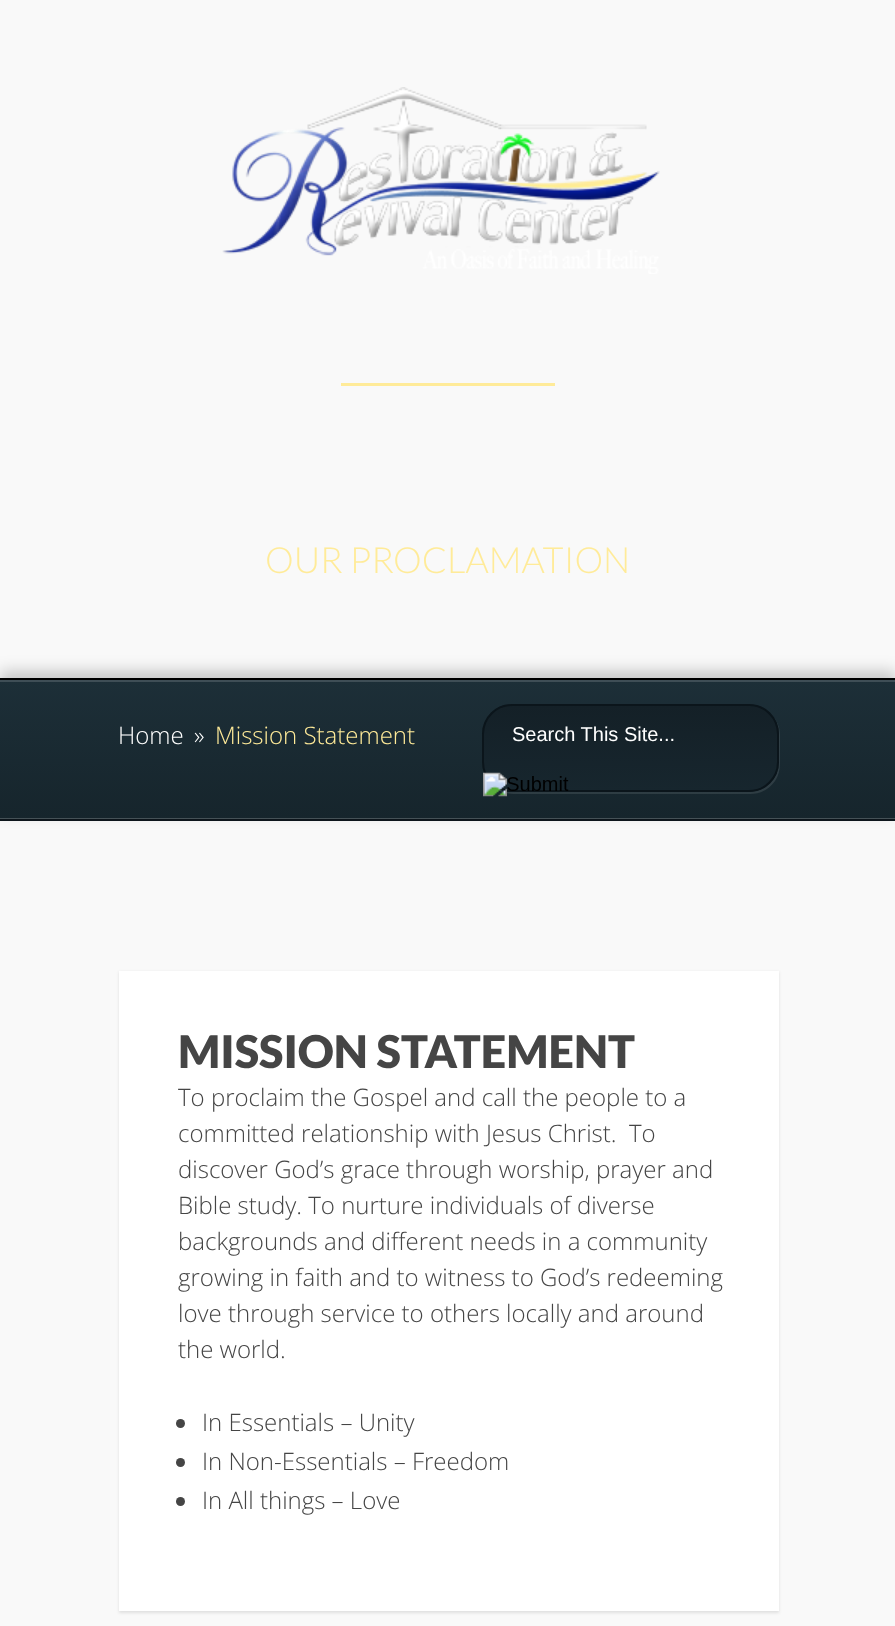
<svg xmlns="http://www.w3.org/2000/svg" xmlns:xlink="http://www.w3.org/1999/xlink" width="895" height="1626" viewBox="0 0 895 1626">
<style>
.cls-1{font:300 36px Lato;fill:#ffeb99}
.cls-2{font:300 24px Open Sans;fill:#ffffff}
.cls-3{font:300 24px Open Sans;fill:#ffeb99}
.cls-4{font:20px Liberation Sans;fill:#ffffff}
.cls-5{font:900 45px Lato;fill:#454545}
.cls-6{font:300 24px Open Sans;fill:#454545}
</style>
<defs>
<linearGradient id="g1" gradientUnits="userSpaceOnUse" x1="448" y1="679" x2="448" y2="819"><stop offset="0" stop-color="#1d2f38"/><stop offset="1" stop-color="#16252c"/></linearGradient>
<linearGradient id="g2" gradientUnits="userSpaceOnUse" x1="448" y1="679" x2="448" y2="819"><stop offset="0" stop-color="#4a5960"/><stop offset="1" stop-color="#455156"/></linearGradient>
<clipPath id="clip1"><rect x="482" y="704" width="297" height="88" rx="30"/></clipPath>
<linearGradient id="g3" gradientUnits="userSpaceOnUse" x1="630" y1="705" x2="630" y2="791"><stop offset="0" stop-color="#142027"/><stop offset="1" stop-color="#17262e"/></linearGradient>
</defs>
<rect width="100%" height="100%" fill="#f9f9f9"/>
<image xlink:href="image0.png" x="222" y="87" width="438" height="187"/>
<rect fill="#ffeb99" x="341" y="383" width="214" height="3"/>
<rect fill="#000000" fill-opacity="0.2" filter="blur(7.5px)" x="0" y="671" width="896" height="142"/>
<rect fill="url(#g1)" x="0" y="682" width="895" height="136"/>
<rect fill="url(#g2)" x="0" y="818" width="895" height="1"/>
<rect fill="#3f4e56" x="0" y="680" width="895" height="2"/>
<rect fill="#000000" x="0" y="678" width="895" height="2"/>
<rect fill="#0d151b" x="0" y="819" width="895" height="2"/>
<path fill="#ffffff" fill-opacity="0.1" d="M488 781C494 789 503 794 513 794H750C767 794 780 781 780 764V735C780 726 776 719 770 713C775 718 778 726 778 734V762C778 779 765 792 748 792H512C502 792 494 788 488 781Z"/>
<g clip-path="url(#clip1)">
<rect fill="url(#g3)" x="482" y="705" width="297" height="86"/>
</g>
<rect fill="none" stroke="#0b151b" stroke-width="2" x="483" y="705" width="295" height="86" rx="29"/>
<image xlink:href="image1.png" x="483" y="772" width="86" height="25"/>
<rect fill="#000000" fill-opacity="0.1" filter="blur(1.5px)" x="119" y="972" width="660" height="641"/>
<rect fill="#ffffff" x="119" y="971" width="660" height="640"/>
<circle fill="#454545" cx="180.5" cy="1423.5" r="4.5"/>
<circle fill="#454545" cx="180.5" cy="1462.5" r="4.5"/>
<circle fill="#454545" cx="180.5" cy="1501.5" r="4.5"/>
<text class="cls-1" x="265" y="573">OUR PROCLAMATION</text>
<text class="cls-2" x="118" y="744">Home</text>
<text class="cls-2" x="194" y="744">»</text>
<text class="cls-3" x="215" y="744">Mission Statement</text>
<text class="cls-4" x="512" y="741">Search This Site...</text>
<text class="cls-5" x="178" y="1068">MISSION STATEMENT</text>
<text class="cls-6" xml:space="preserve"><tspan x="178" y="1106">To proclaim the Gospel and call the people to a</tspan><tspan x="178" y="1142">committed relationship with Jesus Christ.  To</tspan><tspan x="178" y="1178">discover God’s grace through worship, prayer and</tspan><tspan x="178" y="1214">Bible study. To nurture individuals of diverse</tspan><tspan x="178" y="1250">backgrounds and different needs in a community</tspan><tspan x="178" y="1286">growing in faith and to witness to God’s redeeming</tspan><tspan x="178" y="1322">love through service to others locally and around</tspan><tspan x="178" y="1358">the world.</tspan></text>
<text class="cls-6"><tspan x="202" y="1431">In Essentials – Unity</tspan><tspan x="202" y="1470">In Non-Essentials – Freedom</tspan><tspan x="202" y="1509">In All things – Love</tspan></text>
</svg>
